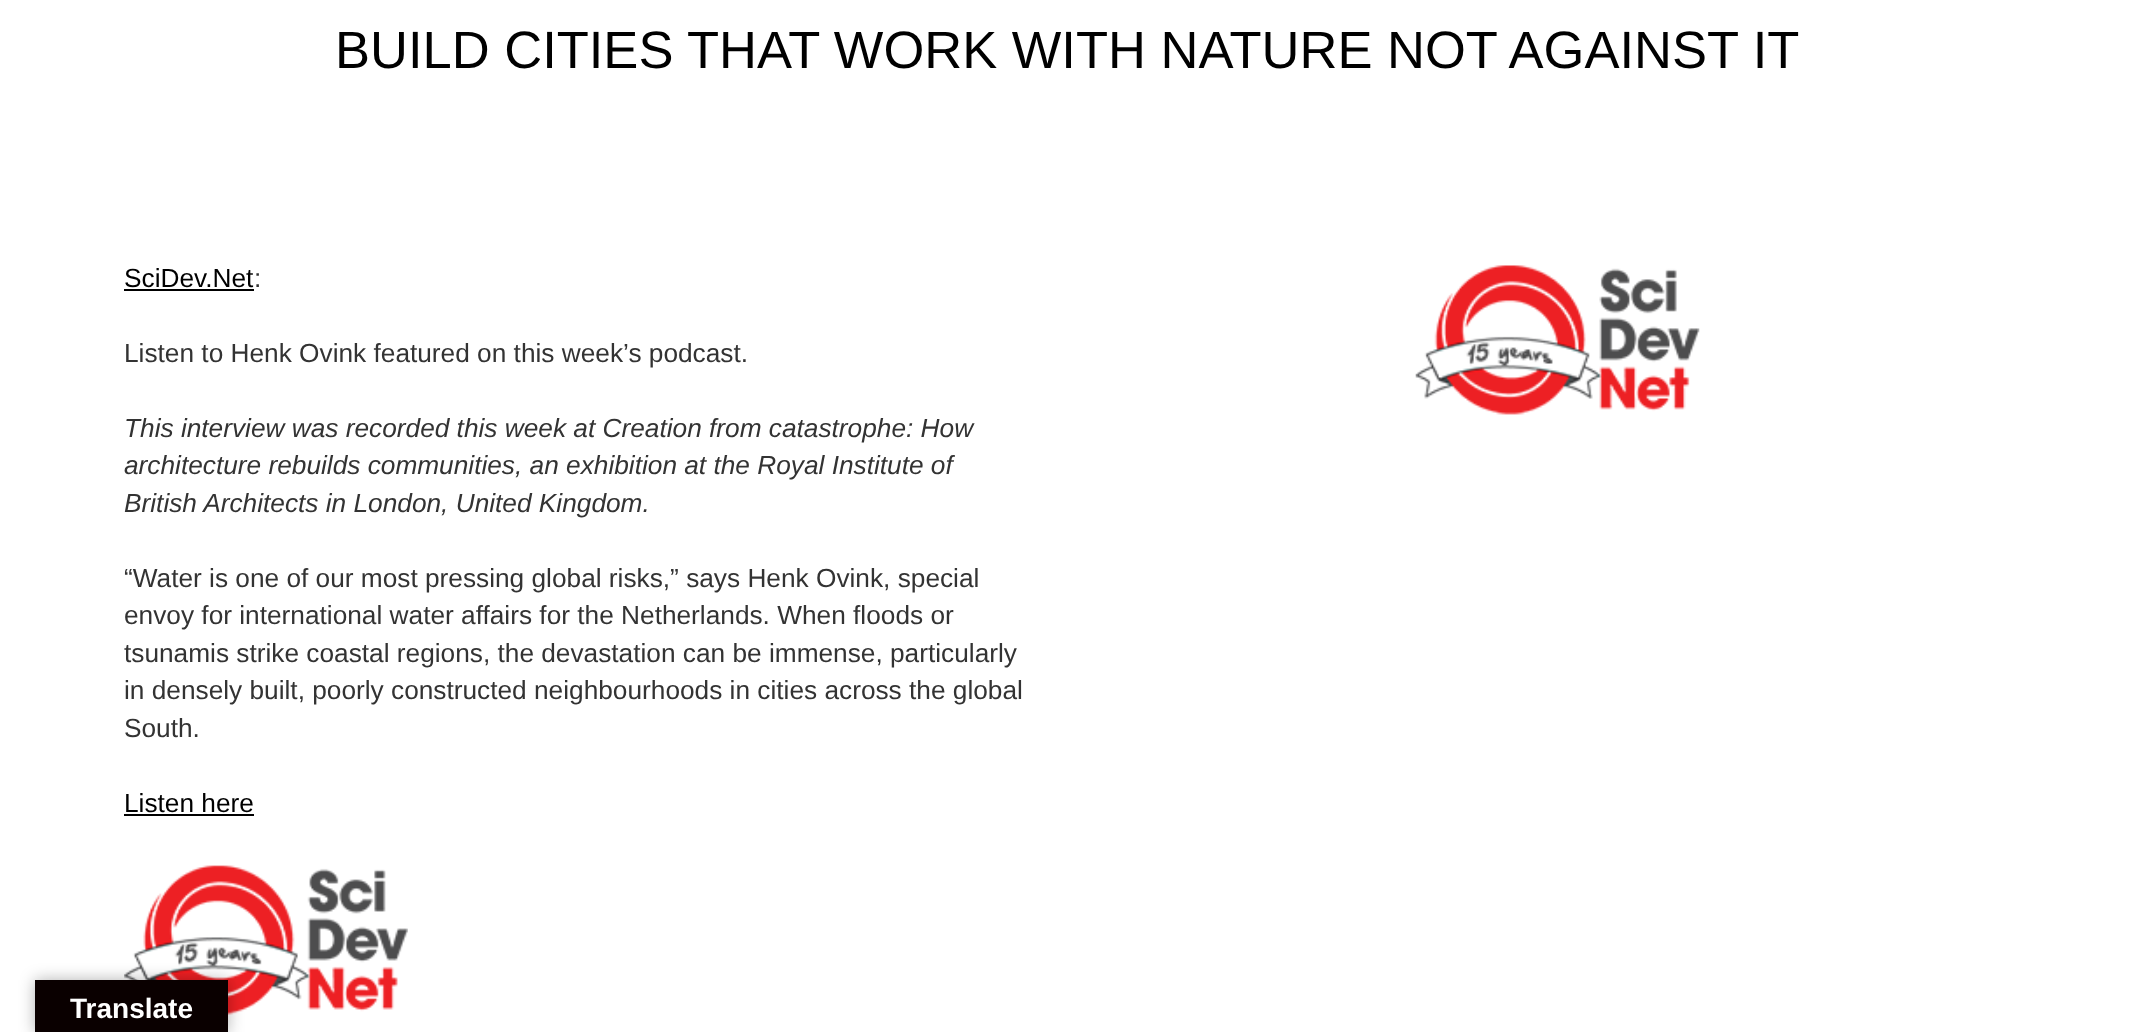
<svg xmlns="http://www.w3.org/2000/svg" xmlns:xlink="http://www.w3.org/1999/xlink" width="2134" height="1032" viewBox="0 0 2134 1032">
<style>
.cls-1{font:52.5px Liberation Sans;fill:#000000}
.cls-2{font:26.25px Liberation Sans;fill:#000000}
.cls-3{font:26.25px Liberation Sans;fill:#333333}
.cls-4{font:italic 26.25px Liberation Sans;fill:#333333}
.cls-5{font:bold 28px Liberation Sans;fill:#ffffff}
</style>
<rect width="100%" height="100%" fill="#ffffff"/>
<rect fill="#000000" x="124" y="289" width="130" height="2"/>
<rect fill="#000000" x="124" y="814" width="130" height="2"/>
<image xlink:href="image0.png" x="124" y="865" width="284" height="150"/>
<image xlink:href="image1.png" x="1415" y="265" width="285" height="150"/>
<rect fill="#000000" fill-opacity="0.3" filter="blur(8px)" x="35" y="980" width="193" height="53"/>
<rect fill="#0a0000" x="35" y="980" width="193" height="52"/>
<text class="cls-1" x="335" y="68">BUILD CITIES THAT WORK WITH NATURE NOT AGAINST IT</text>
<text class="cls-2" x="124" y="287">SciDev.Net</text>
<text class="cls-3" x="254" y="287">:</text>
<text class="cls-3" x="124" y="362">Listen to Henk Ovink featured on this week’s podcast.</text>
<text class="cls-4"><tspan x="124" y="437">This interview was recorded this week at Creation from catastrophe: How</tspan><tspan x="124" y="474">architecture rebuilds communities, an exhibition at the Royal Institute of</tspan><tspan x="124" y="512">British Architects in London, United Kingdom.</tspan></text>
<text class="cls-3"><tspan x="124" y="587">“Water is one of our most pressing global risks,” says Henk Ovink, special</tspan><tspan x="124" y="624">envoy for international water affairs for the Netherlands. When floods or</tspan><tspan x="124" y="662">tsunamis strike coastal regions, the devastation can be immense, particularly</tspan><tspan x="124" y="699">in densely built, poorly constructed neighbourhoods in cities across the global</tspan><tspan x="124" y="737">South.</tspan></text>
<text class="cls-2" x="124" y="812">Listen here</text>
<text class="cls-5" x="70" y="1018">Translate</text>
</svg>
